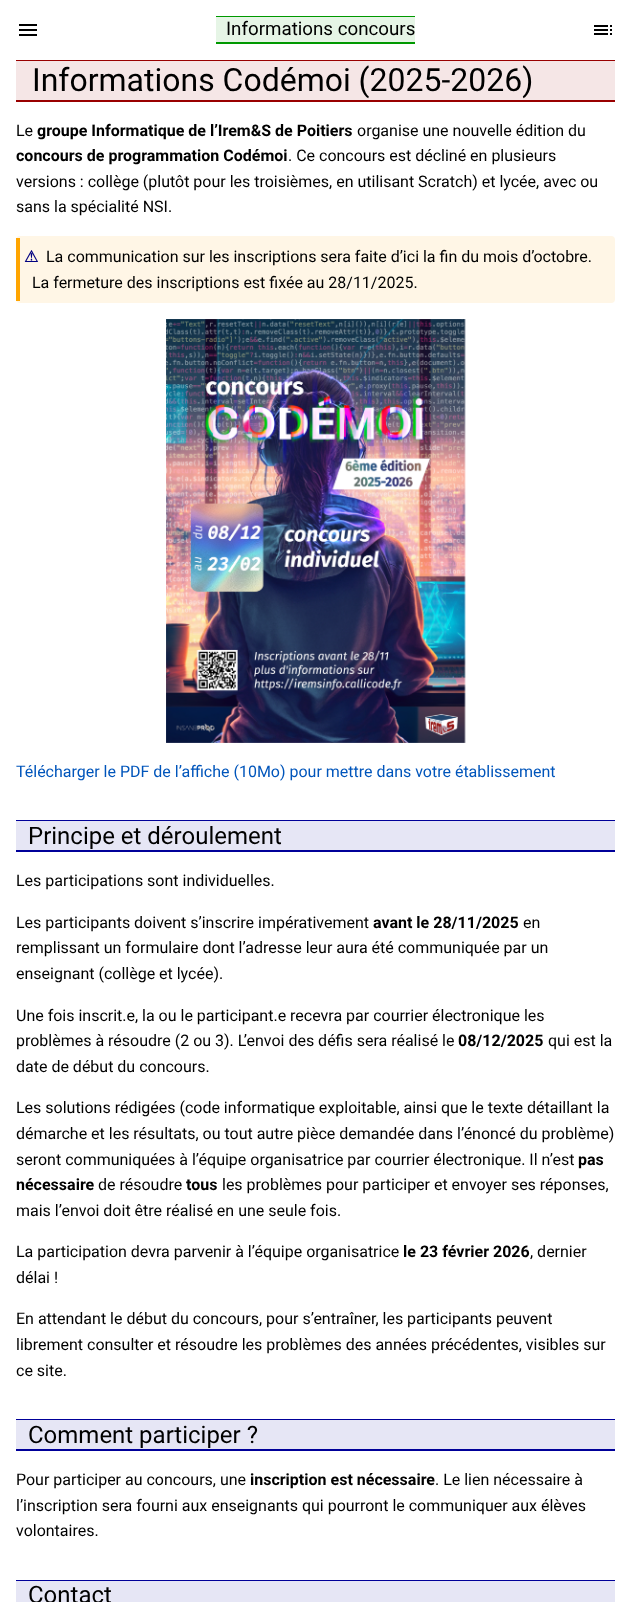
<svg xmlns="http://www.w3.org/2000/svg" xmlns:xlink="http://www.w3.org/1999/xlink" width="631" height="1602" viewBox="0 0 631 1602">
<style>
.cls-1{font:18.75px Roboto;fill:#000000}
.cls-2{font:32px Roboto;fill:#000000}
.cls-3{font:16px Roboto;fill:#000000}
.cls-4{font:bold 16px Roboto;fill:#000000}
.cls-5{font:bold 16px DejaVu Sans;fill:#000080}
.cls-6{font:16px Roboto;fill:#0055bb}
.cls-7{font:24px Roboto;fill:#000000}
</style>
<rect width="100%" height="100%" fill="#ffffff"/>
<image xlink:href="image0.png" x="19" y="24" width="18" height="12"/>
<rect fill="#e6f5e6" x="216" y="17" width="199" height="25"/>
<rect fill="#009900" x="216" y="16" width="199" height="1"/>
<rect fill="#009900" x="216" y="42" width="199" height="2"/>
<image xlink:href="image1.png" x="594" y="25" width="18" height="10"/>
<rect fill="#f5e6e6" x="16" y="61" width="599" height="39"/>
<rect fill="#990000" x="16" y="60" width="599" height="1"/>
<rect fill="#990000" x="16" y="100" width="599" height="2"/>
<rect fill="#fff6e6" x="16" y="236" width="599" height="67" rx="4"/>
<rect fill="#ffa500" x="16" y="238" width="4" height="63"/>
<image xlink:href="image2.png" x="166" y="319" width="300" height="424"/>
<rect fill="#e6e6f5" x="16" y="821" width="599" height="29"/>
<rect fill="#000099" x="16" y="820" width="599" height="1"/>
<rect fill="#000099" x="16" y="850" width="599" height="2"/>
<rect fill="#e6e6f5" x="16" y="1420" width="599" height="29"/>
<rect fill="#000099" x="16" y="1419" width="599" height="1"/>
<rect fill="#000099" x="16" y="1449" width="599" height="2"/>
<rect fill="#e6e6f5" x="16" y="1581" width="599" height="21"/>
<rect fill="#000099" x="16" y="1580" width="599" height="1"/>
<text class="cls-1" x="226" y="35">Informations concours</text>
<text class="cls-2" x="32" y="91">Informations Codémoi (2025-2026)</text>
<text class="cls-3" x="16" y="136">Le</text>
<text class="cls-4" x="37" y="136">groupe Informatique de l’Irem&amp;S de Poitiers</text>
<text class="cls-3" x="357" y="136">organise une nouvelle édition du</text>
<text class="cls-4" x="16" y="161">concours de programmation Codémoi</text>
<text class="cls-3" x="288" y="161">. Ce concours est décliné en plusieurs</text>
<text class="cls-3"><tspan x="16" y="187">versions : collège (plutôt pour les troisièmes, en utilisant Scratch) et lycée, avec ou</tspan><tspan x="16" y="212">sans la spécialité NSI.</tspan></text>
<text class="cls-5" x="24" y="262">⚠</text>
<text class="cls-3" x="46" y="262">La communication sur les inscriptions sera faite d’ici la fin du mois d’octobre.</text>
<text class="cls-3" x="32" y="288">La fermeture des inscriptions est fixée au 28/11/2025.</text>
<text class="cls-6" x="16" y="777">Télécharger le PDF de l’affiche (10Mo) pour mettre dans votre établissement</text>
<text class="cls-7" x="28" y="844">Principe et déroulement</text>
<text class="cls-3" x="16" y="886">Les participations sont individuelles.</text>
<text class="cls-3" x="16" y="928">Les participants doivent s’inscrire impérativement</text>
<text class="cls-4" x="373" y="928">avant le 28/11/2025</text>
<text class="cls-3" x="523" y="928">en</text>
<text class="cls-3"><tspan x="16" y="953">remplissant un formulaire dont l’adresse leur aura été communiquée par un</tspan><tspan x="16" y="979">enseignant (collège et lycée).</tspan></text>
<text class="cls-3"><tspan x="16" y="1021">Une fois inscrit.e, la ou le participant.e recevra par courrier électronique les</tspan><tspan x="16" y="1046">problèmes à résoudre (2 ou 3). L’envoi des défis sera réalisé le</tspan></text>
<text class="cls-4" x="458" y="1046">08/12/2025</text>
<text class="cls-3" x="548" y="1046">qui est la</text>
<text class="cls-3" x="16" y="1072">date de début du concours.</text>
<text class="cls-3"><tspan x="16" y="1113">Les solutions rédigées (code informatique exploitable, ainsi que le texte détaillant la</tspan><tspan x="16" y="1139">démarche et les résultats, ou tout autre pièce demandée dans l’énoncé du problème)</tspan><tspan x="16" y="1165">seront communiquées à l’équipe organisatrice par courrier électronique. Il n’est</tspan></text>
<text class="cls-4" x="578" y="1165">pas</text>
<text class="cls-4" x="16" y="1190">nécessaire</text>
<text class="cls-3" x="98" y="1190">de résoudre</text>
<text class="cls-4" x="186" y="1190">tous</text>
<text class="cls-3" x="222" y="1190">les problèmes pour participer et envoyer ses réponses,</text>
<text class="cls-3" x="16" y="1216">mais l’envoi doit être réalisé en une seule fois.</text>
<text class="cls-3" x="16" y="1257">La participation devra parvenir à l’équipe organisatrice</text>
<text class="cls-4" x="403" y="1257">le 23 février 2026</text>
<text class="cls-3" x="530" y="1257">, dernier</text>
<text class="cls-3" x="16" y="1283">délai !</text>
<text class="cls-3"><tspan x="16" y="1324">En attendant le début du concours, pour s’entraîner, les participants peuvent</tspan><tspan x="16" y="1350">librement consulter et résoudre les problèmes des années précédentes, visibles sur</tspan><tspan x="16" y="1376">ce site.</tspan></text>
<text class="cls-7" x="28" y="1443">Comment participer ?</text>
<text class="cls-3" x="16" y="1485">Pour participer au concours, une</text>
<text class="cls-4" x="250" y="1485">inscription est nécessaire</text>
<text class="cls-3" x="435" y="1485">. Le lien nécessaire à</text>
<text class="cls-3"><tspan x="16" y="1511">l’inscription sera fourni aux enseignants qui pourront le communiquer aux élèves</tspan><tspan x="16" y="1536">volontaires.</tspan></text>
<text class="cls-7" x="28" y="1603">Contact</text>
</svg>
